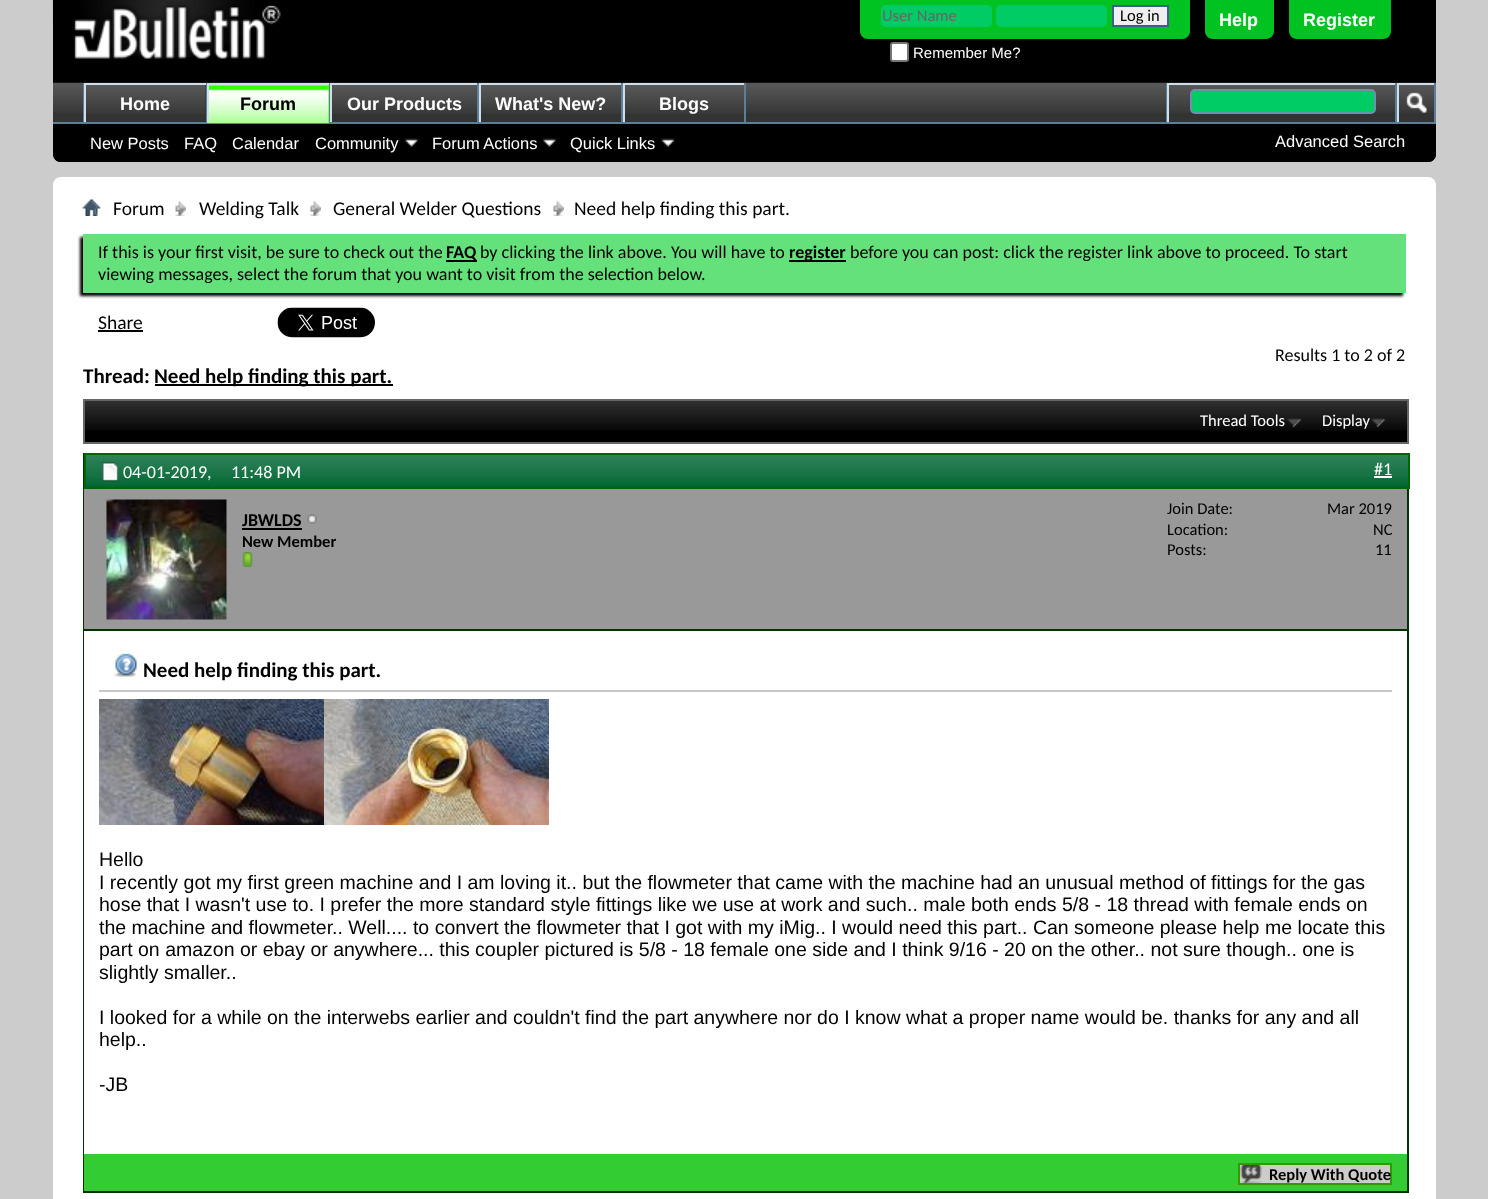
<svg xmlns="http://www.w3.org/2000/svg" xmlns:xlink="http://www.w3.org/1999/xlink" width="1488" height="1199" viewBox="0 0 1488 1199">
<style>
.cls-1{font:16.5px Carlito;fill:#666666}
.cls-2{font:16.5px Carlito;fill:#000000}
.cls-3{font:15px Liberation Sans;fill:#ffffff}
.cls-4{font:bold 18px Liberation Sans;fill:#ffffff}
.cls-5{font:bold 18px Liberation Sans;fill:#000000}
.cls-6{font:16.5px Liberation Sans;fill:#ffffff}
.cls-7{font:19.5px Carlito;fill:#000000}
.cls-8{font:18px Carlito;fill:#000000}
.cls-9{font:bold 18px Carlito;fill:#000000}
.cls-10{font:bold 21px Carlito;fill:#000000}
.cls-11{font:16.5px Carlito;fill:#ffffff}
.cls-12{font:18px Carlito;fill:#ffffff}
.cls-13{font:bold 16.5px Carlito;fill:#000000}
.cls-14{font:19.5px Liberation Sans;fill:#000000}
</style>
<rect width="100%" height="100%" fill="#cccccc"/>
<path fill="#000000" d="M53 0H1436V154C1436 158.5 1432.5 162 1428 162H61C56.5 162 53 158.5 53 154Z"/>
<image xlink:href="image0.png" x="52" y="0" width="1" height="22"/>
<image xlink:href="image1.png" x="74" y="0" width="207" height="59"/>
<path fill="#00c322" d="M860 0H1190V31C1190 35.5 1186.5 39 1182 39H868C863.5 39 860 35.5 860 31Z"/>
<rect fill="#00cc66" x="881" y="5" width="111" height="22" rx="5"/>
<rect fill="#00cc66" x="996" y="5" width="111" height="22" rx="5"/>
<rect fill="#efefef" stroke="#415d8d" stroke-width="2" x="1113" y="6" width="55" height="20"/>
<rect fill="#ffffff" stroke="#767676" stroke-width="2" x="891" y="43" width="17" height="18" rx="2"/>
<path fill="#00c322" d="M1205 0H1274V31C1274 35.5 1270.5 39 1266 39H1213C1208.5 39 1205 35.5 1205 31Z"/>
<path fill="#00c322" d="M1289 0H1391V31C1391 35.5 1387.5 39 1383 39H1297C1292.5 39 1289 35.5 1289 31Z"/>
<path fill="#000000" d="M53 83H1436V154C1436 158.5 1432.5 162 1428 162H61C56.5 162 53 158.5 53 154Z"/>
<rect fill="#333333" x="53" y="83" width="1381" height="39"/>
<image xlink:href="image2.png" x="52" y="82" width="1384" height="31"/>
<rect fill="#5a7f97" x="206" y="83" width="1" height="40"/>
<rect fill="#5a7f97" x="83" y="83" width="1" height="40"/>
<rect fill="#333333" x="86" y="85" width="120" height="28"/>
<image xlink:href="image3.png" x="86" y="85" width="120" height="29"/>
<rect fill="#cedfeb" x="84" y="83" width="122" height="2"/>
<rect fill="#cedfeb" x="84" y="83" width="2" height="40"/>
<rect fill="#5a7f97" x="329" y="83" width="1" height="39"/>
<rect fill="#5a7f97" x="477" y="83" width="2" height="40"/>
<rect fill="#cedfeb" x="330" y="83" width="147" height="2"/>
<rect fill="#cedfeb" x="330" y="83" width="2" height="40"/>
<rect fill="#5a7f97" x="621" y="83" width="2" height="40"/>
<rect fill="#333333" x="481" y="85" width="140" height="28"/>
<image xlink:href="image6.png" x="478" y="84" width="143" height="30"/>
<rect fill="#cedfeb" x="479" y="83" width="142" height="2"/>
<rect fill="#cedfeb" x="479" y="83" width="2" height="40"/>
<rect fill="#5a7f97" x="744" y="83" width="2" height="40"/>
<rect fill="#333333" x="625" y="85" width="119" height="28"/>
<image xlink:href="image7.png" x="622" y="84" width="122" height="30"/>
<rect fill="#cedfeb" x="623" y="83" width="121" height="2"/>
<rect fill="#cedfeb" x="623" y="83" width="2" height="40"/>
<rect fill="#5a7f97" x="53" y="122" width="1383" height="2"/>
<rect fill="#33ff00" x="209" y="85" width="120" height="38"/>
<image xlink:href="image4.png" x="209" y="85" width="120" height="38"/>
<rect fill="#cedfeb" x="207" y="83" width="122" height="2"/>
<rect fill="#cedfeb" x="207" y="83" width="2" height="40"/>
<rect fill="#333333" x="332" y="85" width="145" height="28"/>
<image xlink:href="image5.png" x="332" y="85" width="145" height="29"/>
<image xlink:href="image8.png" x="404" y="138" width="15" height="9"/>
<image xlink:href="image9.png" x="542" y="138" width="15" height="9"/>
<image xlink:href="image10.png" x="661" y="138" width="14" height="9"/>
<rect fill="#5a7f97" x="1166" y="83" width="1" height="39"/>
<rect fill="#cedfeb" x="1167" y="83" width="228" height="2"/>
<rect fill="#cedfeb" x="1167" y="83" width="2" height="39"/>
<rect fill="#00cc66" stroke="#6b91ab" stroke-width="2" x="1191" y="90" width="184" height="23" rx="4"/>
<rect fill="#5a7f97" x="1434" y="83" width="2" height="39"/>
<rect fill="#5a7f97" x="1395" y="83" width="2" height="39"/>
<rect fill="#cedfeb" x="1397" y="83" width="37" height="2"/>
<rect fill="#cedfeb" x="1397" y="83" width="2" height="39"/>
<image xlink:href="image11.png" x="1406" y="92" width="21" height="22"/>
<rect fill="#ffffff" x="53" y="177" width="1383" height="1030" rx="8"/>
<image xlink:href="image12.png" x="82" y="199" width="19" height="17"/>
<image xlink:href="image13.png" x="175" y="200" width="11" height="16"/>
<image xlink:href="image13.png" x="310" y="200" width="11" height="16"/>
<image xlink:href="image14.png" x="553" y="200" width="11" height="16"/>
<rect fill="#000000" filter="blur(1.5px)" x="80" y="237" width="1323" height="59"/>
<rect fill="#65e17b" x="83" y="234" width="1323" height="59"/>
<rect fill="#000000" x="446" y="260" width="31" height="2"/>
<rect fill="#000000" x="789" y="260" width="57" height="2"/>
<rect fill="#000000" x="98" y="330" width="45" height="2"/>
<image xlink:href="image15.png" x="277" y="307" width="98" height="31"/>
<rect fill="#000000" x="155" y="384" width="238" height="2"/>
<rect fill="#000000" x="85" y="401" width="1322" height="41"/>
<image xlink:href="image16.png" x="85" y="401" width="1322" height="30"/>
<rect fill="none" stroke="#666666" stroke-width="2" x="84" y="400" width="1324" height="43"/>
<image xlink:href="image17.png" x="1287" y="418" width="14" height="10"/>
<image xlink:href="image18.png" x="1371" y="418" width="14" height="10"/>
<rect fill="none" stroke="#003300" stroke-width="2" x="84" y="454" width="1324" height="738"/>
<rect fill="#006633" x="86" y="455" width="1322" height="32"/>
<image xlink:href="image19.png" x="86" y="455" width="1322" height="30"/>
<rect fill="none" stroke="#006600" stroke-width="2" x="85" y="454" width="1324" height="34"/>
<image xlink:href="image20.png" x="101" y="462" width="18" height="20"/>
<rect fill="#ffffff" x="1374" y="476" width="18" height="2"/>
<rect fill="#999999" x="84" y="489" width="1323" height="140"/>
<rect fill="#003300" x="84" y="629" width="1323" height="2"/>
<image xlink:href="image21.png" x="106" y="499" width="121" height="121"/>
<rect fill="#000000" x="242" y="528" width="60" height="2"/>
<image xlink:href="image22.png" x="307" y="514" width="10" height="10"/>
<image xlink:href="image23.png" x="242" y="552" width="11" height="15"/>
<rect fill="#ffffff" x="84" y="631" width="1" height="523"/>
<rect fill="#c8c8c8" x="99" y="690" width="1293" height="2"/>
<image xlink:href="image24.png" x="114" y="653" width="23" height="24"/>
<image xlink:href="image25.png" x="99" y="699" width="225" height="126"/>
<image xlink:href="image26.png" x="324" y="699" width="225" height="126"/>
<rect fill="#33cc33" x="84" y="1154" width="1323" height="37"/>
<rect fill="#cccccc" x="1240" y="1165" width="150" height="18"/>
<image xlink:href="image27.png" x="1240" y="1165" width="22" height="18"/>
<rect fill="none" stroke="#339900" stroke-width="2" x="1239" y="1164" width="152" height="20"/>
<text class="cls-1" x="882" y="21">User Name</text>
<text class="cls-2" x="1120" y="21">Log in</text>
<text class="cls-3" x="913" y="58">Remember Me?</text>
<text class="cls-4" x="1219" y="26">Help</text>
<text class="cls-4" x="1303" y="26">Register</text>
<text class="cls-4" x="120" y="110">Home</text>
<text class="cls-5" x="240" y="110">Forum</text>
<text class="cls-4" x="347" y="110">Our Products</text>
<text class="cls-4" x="495" y="110">What's New?</text>
<text class="cls-4" x="659" y="110">Blogs</text>
<text class="cls-6" x="90" y="149">New Posts</text>
<text class="cls-6" x="184" y="149">FAQ</text>
<text class="cls-6" x="232" y="149">Calendar</text>
<text class="cls-6" x="315" y="149">Community</text>
<text class="cls-6" x="432" y="149">Forum Actions</text>
<text class="cls-6" x="570" y="149">Quick Links</text>
<text class="cls-6" x="1275" y="147">Advanced Search</text>
<text class="cls-7" x="113" y="215">Forum</text>
<text class="cls-7" x="199" y="215">Welding Talk</text>
<text class="cls-7" x="333" y="215">General Welder Questions</text>
<text class="cls-7" x="574" y="215">Need help finding this part.</text>
<text class="cls-8" x="98" y="258">If this is your first visit, be sure to check out the</text>
<text class="cls-9" x="446" y="258">FAQ</text>
<text class="cls-8" x="480" y="258">by clicking the link above. You will have to</text>
<text class="cls-9" x="789" y="258">register</text>
<text class="cls-8" x="850" y="258">before you can post: click the register link above to proceed. To start</text>
<text class="cls-8" x="98" y="280">viewing messages, select the forum that you want to visit from the selection below.</text>
<text class="cls-7" x="98" y="329">Share</text>
<text class="cls-8" x="1275" y="361">Results 1 to 2 of 2</text>
<text class="cls-10" x="83" y="383">Thread:</text>
<text class="cls-10" x="154" y="383">Need help finding this part.</text>
<text class="cls-11" x="1200" y="426">Thread Tools</text>
<text class="cls-11" x="1322" y="426">Display</text>
<text class="cls-12" x="123" y="478">04-01-2019,</text>
<text class="cls-12" x="231" y="478">11:48 PM</text>
<text class="cls-12" x="1374" y="475">#1</text>
<text class="cls-9" x="242" y="526">JBWLDS</text>
<text class="cls-13" x="242" y="547">New Member</text>
<text class="cls-2" x="1167" y="514">Join Date:</text>
<text class="cls-2" x="1327" y="514">Mar 2019</text>
<text class="cls-2" x="1167" y="535">Location:</text>
<text class="cls-2" x="1373" y="535">NC</text>
<text class="cls-2" x="1167" y="555">Posts:</text>
<text class="cls-2" x="1375" y="555">11</text>
<text class="cls-10" x="143" y="677">Need help finding this part.</text>
<text class="cls-14"><tspan x="99" y="866">Hello</tspan><tspan x="99" y="889">I recently got my first green machine and I am loving it.. but the flowmeter that came with the machine had an unusual method of fittings for the gas</tspan><tspan x="99" y="911">hose that I wasn't use to. I prefer the more standard style fittings like we use at work and such.. male both ends 5/8 - 18 thread with female ends on</tspan><tspan x="99" y="934">the machine and flowmeter.. Well.... to convert the flowmeter that I got with my iMig.. I would need this part.. Can someone please help me locate this</tspan><tspan x="99" y="956">part on amazon or ebay or anywhere... this coupler pictured is 5/8 - 18 female one side and I think 9/16 - 20 on the other.. not sure though.. one is</tspan><tspan x="99" y="979">slightly smaller..</tspan></text>
<text class="cls-14"><tspan x="99" y="1024">I looked for a while on the interwebs earlier and couldn't find the part anywhere nor do I know what a proper name would be. thanks for any and all</tspan><tspan x="99" y="1046">help..</tspan></text>
<text class="cls-14" x="99" y="1091">-JB</text>
<text class="cls-13" x="1269" y="1180">Reply With Quote</text>
</svg>
